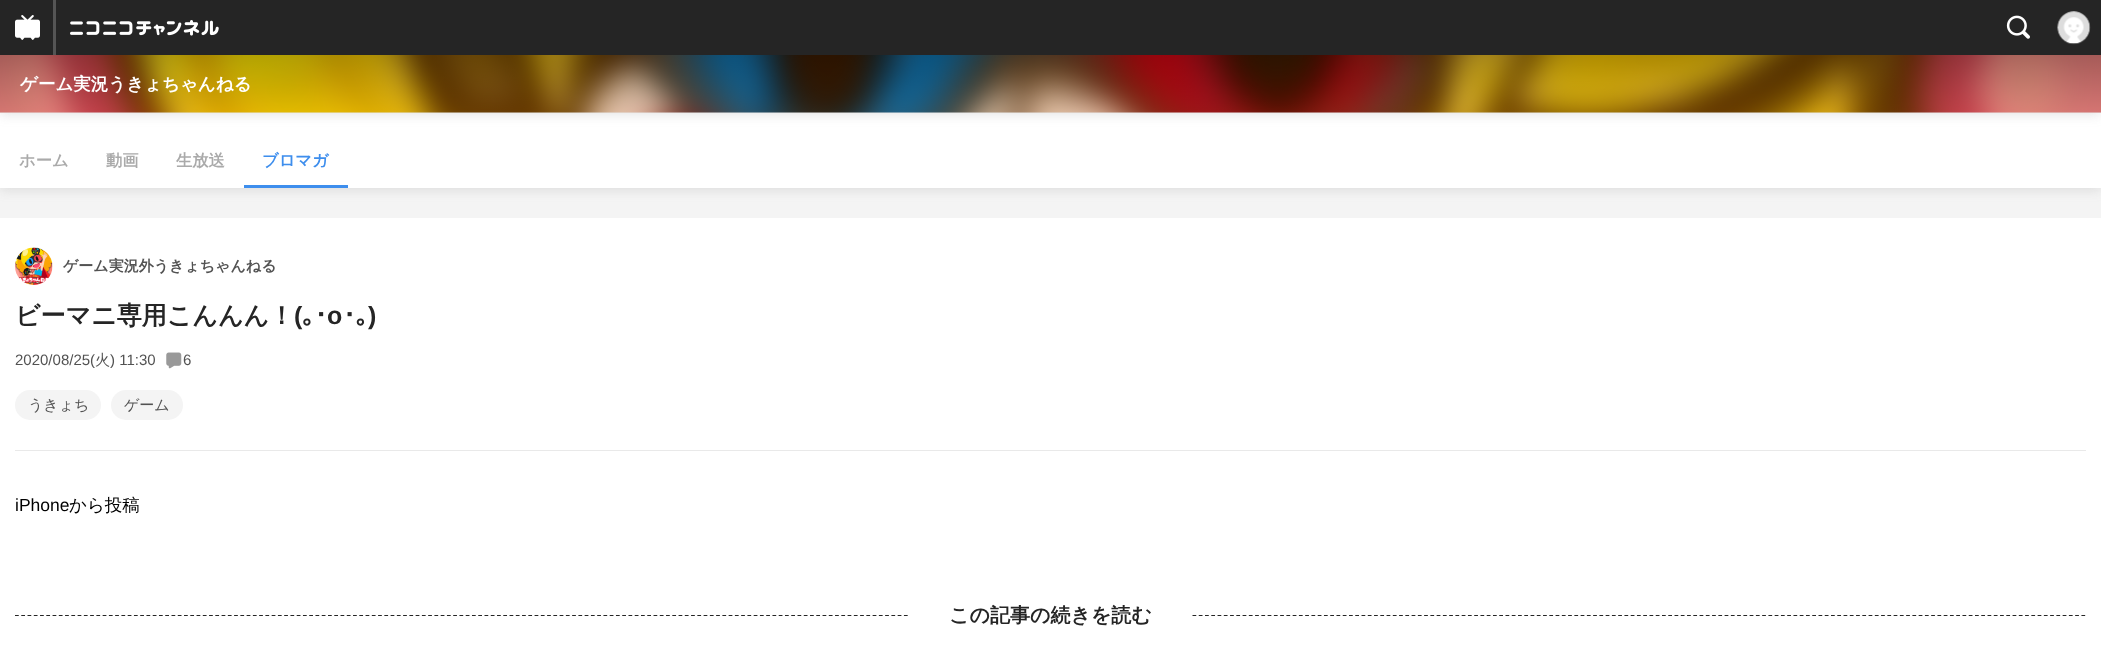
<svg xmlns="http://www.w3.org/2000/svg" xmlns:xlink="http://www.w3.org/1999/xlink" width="2101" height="661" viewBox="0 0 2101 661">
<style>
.cls-1{font:bold 17.5px WenQuanYi Zen Hei;fill:#ffffff}
.cls-2{font:bold 16.25px WenQuanYi Zen Hei;fill:#aaaaaa}
.cls-3{font:bold 16.25px WenQuanYi Zen Hei;fill:#3e8eed}
.cls-4{font:bold 15px WenQuanYi Zen Hei;fill:#525252}
.cls-5{font:bold 25px WenQuanYi Zen Hei;fill:#252525}
.cls-6{font:bold 25px Liberation Sans;fill:#252525}
.cls-7{font:bold 25px IPAPGothic;fill:#252525}
.cls-8{font:15px Liberation Sans;fill:#525252}
.cls-9{font:500 15px WenQuanYi Zen Hei;fill:#525252}
.cls-10{font:17.5px Liberation Sans;fill:#000000}
.cls-11{font:500 17.5px WenQuanYi Zen Hei;fill:#000000}
.cls-12{font:bold 20px WenQuanYi Zen Hei;fill:#252525}
</style>
<defs>
<linearGradient id="g1" gradientUnits="userSpaceOnUse" x1="1051" y1="55" x2="1051" y2="113"><stop offset="0" stop-color="#000000" stop-opacity="0.3"/><stop offset="1" stop-color="#000000" stop-opacity="0.1"/></linearGradient>
</defs>
<rect width="100%" height="100%" fill="#f4f4f4"/>
<rect fill="#7d7d7d" fill-opacity="0.2" filter="blur(6px)" x="0" y="115" width="2101" height="75"/>
<rect fill="#ffffff" x="0" y="113" width="2101" height="75"/>
<rect fill="#7d7d7d" fill-opacity="0.2" filter="blur(6px)" x="0" y="58" width="2101" height="57"/>
<rect fill="#252525" x="0" y="0" width="2101" height="55"/>
<image xlink:href="image0.png" x="15" y="15" width="25" height="25"/>
<rect fill="#555555" x="53" y="0" width="3" height="55"/>
<image xlink:href="image1.png" x="70" y="20" width="149" height="16"/>
<image xlink:href="image2.png" x="2006" y="15" width="24" height="24"/>
<image xlink:href="image3.png" x="2057" y="11" width="34" height="34"/>
<rect fill="#ffffff" x="0" y="112" width="2101" height="1"/>
<image xlink:href="image4.png" x="0" y="55" width="2101" height="58"/>
<rect fill="url(#g1)" x="0" y="55" width="2101" height="58"/>
<rect fill="#3e8eed" x="244" y="185" width="104" height="3"/>
<rect fill="#ffffff" x="0" y="218" width="2101" height="443"/>
<image xlink:href="image5.png" x="15" y="247" width="38" height="38"/>
<rect fill="#e9e9e9" x="15" y="450" width="2071" height="1"/>
<image xlink:href="image6.png" x="166" y="352" width="16" height="17"/>
<rect fill="#f4f4f4" x="15" y="390" width="86" height="30" rx="15"/>
<rect fill="#f4f4f4" x="111" y="390" width="72" height="30" rx="15"/>
<path fill="none" stroke="#252525" stroke-width="1.2" stroke-dasharray="3.75 2.51" d="M15 615.5H909"/>
<path fill="none" stroke="#252525" stroke-width="1.2" stroke-dasharray="3.75 2.51" d="M1192.5 615.5H2086"/>
<text class="cls-1" x="20" y="90">ゲーム実況うきょちゃんねる</text>
<text class="cls-2" x="19" y="166">ホーム</text>
<text class="cls-2" x="106" y="166">動画</text>
<text class="cls-2" x="176" y="166">生放送</text>
<text class="cls-3" x="262" y="166">ブロマガ</text>
<text class="cls-4" x="63" y="271">ゲーム実況外うきょちゃんねる</text>
<text class="cls-5" x="15" y="324">ビーマニ専用こんんん！</text>
<text class="cls-6" x="294" y="324">(</text>
<text class="cls-7" x="302" y="324">｡･</text>
<text class="cls-6" x="327" y="324">o</text>
<text class="cls-7" x="343" y="324">･｡</text>
<text class="cls-6" x="368" y="324">)</text>
<text class="cls-8" x="15" y="365">2020/08/25(</text>
<text class="cls-9" x="95" y="365">火</text>
<text class="cls-8" x="110" y="365">) 11:30</text>
<text class="cls-8" x="183" y="365">6</text>
<text class="cls-9" x="28" y="410">うきょち</text>
<text class="cls-9" x="124" y="410">ゲーム</text>
<text class="cls-10" x="15" y="511">iPhone</text>
<text class="cls-11" x="69" y="511">から投稿</text>
<text class="cls-12" x="949" y="622">この記事の続きを読む</text>
</svg>
